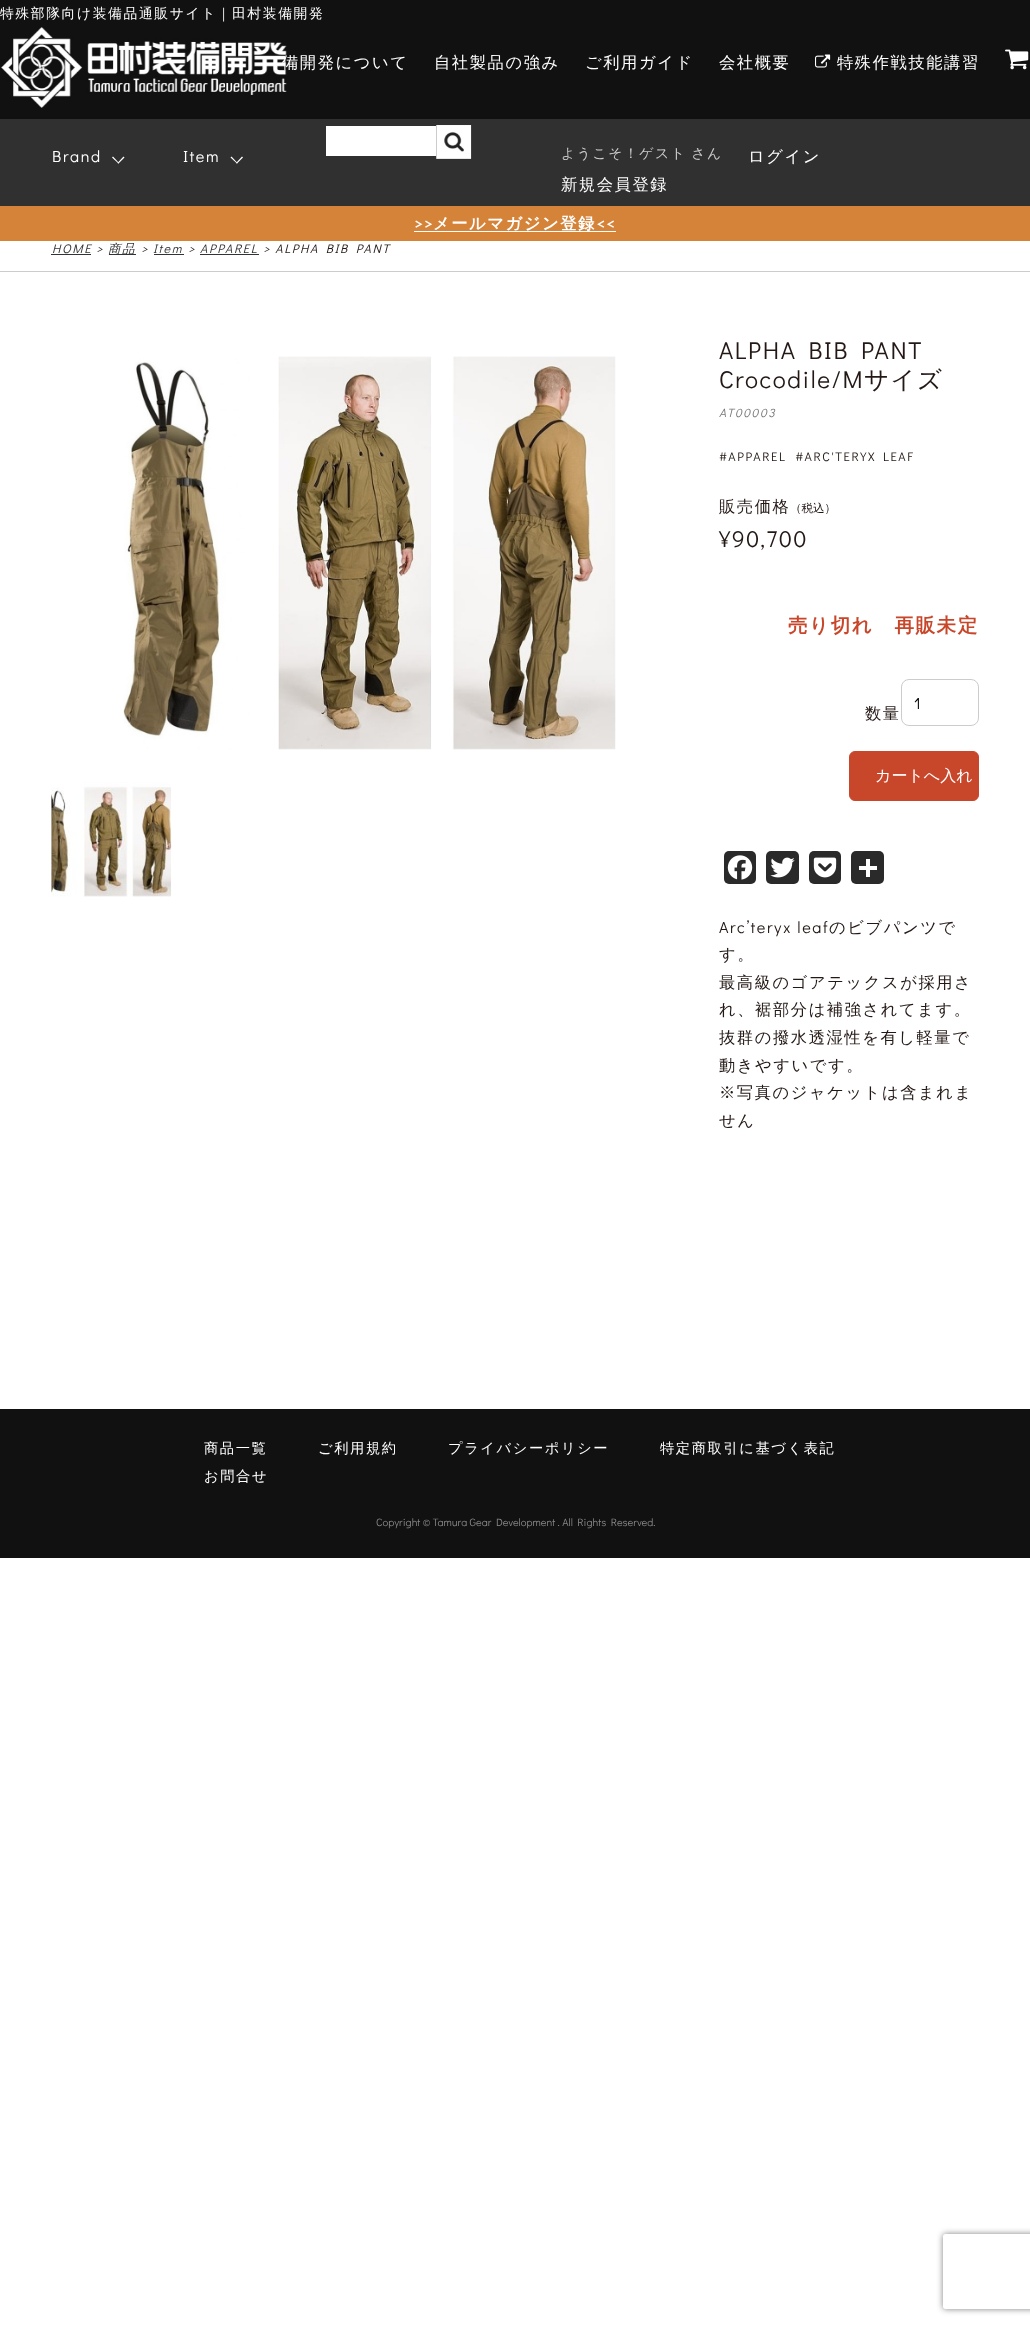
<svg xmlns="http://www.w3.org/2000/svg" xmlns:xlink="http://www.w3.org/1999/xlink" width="1030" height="2326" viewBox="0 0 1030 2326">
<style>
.cls-1{font:500 13.8px WenQuanYi Zen Hei;letter-spacing:1.6px;fill:#ffffff}
.cls-2{font:500 16.25px WenQuanYi Zen Hei;letter-spacing:1.6px;fill:#ffffff}
.cls-3{font:16.25px Didact Gothic;letter-spacing:1.6px;fill:#ffffff}
.cls-4{font:500 13.8px WenQuanYi Zen Hei;letter-spacing:1.6px;fill:#cccccc}
.cls-5{font:bold 16.25px Didact Gothic;letter-spacing:1.6px;fill:#ffffff}
.cls-6{font:bold 16.25px WenQuanYi Zen Hei;letter-spacing:1.6px;fill:#ffffff}
.cls-7{font:italic 12.5px Didact Gothic;letter-spacing:1.6px;fill:#333333}
.cls-8{font:italic 12.5px Didact Gothic;letter-spacing:1.6px;fill:#231815}
.cls-9{font:italic 500 12.5px WenQuanYi Zen Hei;letter-spacing:1.6px;fill:#333333}
.cls-10{font:24.4px Didact Gothic;letter-spacing:1.6px;fill:#231815}
.cls-11{font:500 24.4px WenQuanYi Zen Hei;letter-spacing:1.6px;fill:#231815}
.cls-12{font:italic 12px Didact Gothic;letter-spacing:1.6px;fill:#777777}
.cls-13{font:12.5px Didact Gothic;letter-spacing:1.6px;fill:#231815}
.cls-14{font:500 16.25px WenQuanYi Zen Hei;letter-spacing:1.6px;fill:#231815}
.cls-15{font:500 11.5px WenQuanYi Zen Hei;fill:#231815}
.cls-16{font:23px Didact Gothic;letter-spacing:1.6px;fill:#231815}
.cls-17{font:bold 19.5px WenQuanYi Zen Hei;letter-spacing:1.6px;fill:#c8472b}
.cls-18{font:16px Didact Gothic;fill:#000000}
.cls-19{font:500 16px WenQuanYi Zen Hei;fill:#ffffff}
.cls-20{font:16.25px Didact Gothic;letter-spacing:1.6px;fill:#231815}
.cls-21{font:500 14.25px WenQuanYi Zen Hei;letter-spacing:1.6px;fill:#ffffff}
.cls-22{font:10.75px Didact Gothic;fill:#888888}
</style>
<defs>
<clipPath id="clip1"><path d="M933 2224H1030V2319H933ZM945.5 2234H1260.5C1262 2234 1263 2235 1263 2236.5V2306.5C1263 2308 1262 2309 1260.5 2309H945.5C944 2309 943 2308 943 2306.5V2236.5C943 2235 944 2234 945.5 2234Z" clip-rule="evenodd"/></clipPath>
</defs>
<rect width="100%" height="100%" fill="#ffffff"/>
<rect fill="#111111" x="0" y="0" width="1030" height="119"/>
<image xlink:href="image0.png" x="1" y="27" width="286" height="81"/>
<image xlink:href="image1.png" x="815" y="54" width="16" height="14"/>
<image xlink:href="image2.png" x="1005" y="49" width="24" height="21"/>
<rect fill="#303030" x="0" y="119" width="1030" height="87"/>
<path fill="#ffffff" d="M123.5 156.5L124.5 157.5L118.5 163.5L117.5 163Z"/>
<path fill="#ffffff" d="M113 156.5L119 163L118.5 163.5L112 157.5Z"/>
<path fill="#ffffff" d="M242 156.5L243 157.5L237 163.5L236 163Z"/>
<path fill="#ffffff" d="M231.5 156.5L237.5 163L237 163.5L230.5 157.5Z"/>
<rect fill="#ffffff" x="326" y="126" width="110" height="30"/>
<image xlink:href="image3.png" x="436" y="125" width="36" height="34"/>
<rect fill="#d48338" x="0" y="206" width="1030" height="35"/>
<rect fill="#ffffff" x="414" y="231" width="202" height="1"/>
<rect fill="#cccccc" x="0" y="271" width="1030" height="1"/>
<rect fill="#333333" x="51" y="254" width="40" height="1"/>
<rect fill="#333333" x="109" y="254" width="27" height="1"/>
<rect fill="#333333" x="154" y="254" width="30" height="1"/>
<rect fill="#333333" x="200" y="254" width="59" height="1"/>
<image xlink:href="image4.png" x="123" y="356" width="493" height="394"/>
<image xlink:href="image5.png" x="51" y="782" width="121" height="115"/>
<rect fill="none" stroke="#cccccc" x="901.5" y="679.5" width="77" height="46" rx="7.5"/>
<rect fill="#c8472b" stroke="#c8472b" x="849.5" y="751.5" width="129" height="49" rx="5.5"/>
<rect fill="#2a2a2a" x="724" y="851" width="32" height="33" rx="5"/>
<image xlink:href="image6.png" x="727" y="855" width="26" height="25"/>
<rect fill="#2a2a2a" x="766" y="851" width="33" height="33" rx="5"/>
<image xlink:href="image7.png" x="770" y="857" width="25" height="21"/>
<rect fill="#2a2a2a" x="809" y="851" width="32" height="33" rx="5"/>
<image xlink:href="image8.png" x="813" y="857" width="24" height="21"/>
<rect fill="#2a2a2a" x="851" y="851" width="33" height="33" rx="5"/>
<rect fill="#ffffff" x="866" y="859" width="4" height="18"/>
<rect fill="#ffffff" x="859" y="866" width="18" height="4"/>
<rect fill="#111111" x="0" y="1409" width="1030" height="149"/>
<g clip-path="url(#clip1)">
<rect fill="#808080" filter="blur(3px)" x="943" y="2234" width="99" height="75" rx="2.5"/>
</g>
<text class="cls-1" x="0" y="18">特殊部隊向け装備品通販サイト｜田村装備開発</text>
<text class="cls-2" x="282" y="68">備開発について</text>
<text class="cls-2" x="434" y="68">自社製品の強み</text>
<text class="cls-2" x="585" y="68">ご利用ガイド</text>
<text class="cls-2" x="719" y="68">会社概要</text>
<text class="cls-2" x="837" y="68">特殊作戦技能講習</text>
<text class="cls-3" x="52" y="162">Brand</text>
<text class="cls-3" x="183" y="162">Item</text>
<text class="cls-4" x="561" y="158" word-spacing="-1">ようこそ！ゲスト さん</text>
<text class="cls-2" x="748" y="162">ログイン</text>
<text class="cls-2" x="561" y="190">新規会員登録</text>
<text class="cls-5" x="414" y="229">&gt;&gt;</text>
<text class="cls-6" x="433" y="229">メールマガジン登録</text>
<text class="cls-5" x="597" y="229">&lt;&lt;</text>
<text class="cls-7" x="52" y="253">HOME</text>
<text class="cls-8" x="96" y="253">&gt;</text>
<text class="cls-9" x="108" y="253">商品</text>
<text class="cls-8" x="141" y="253">&gt;</text>
<text class="cls-7" x="153" y="253">Item</text>
<text class="cls-8" x="188" y="253">&gt;</text>
<text class="cls-7" x="200" y="253">APPAREL</text>
<text class="cls-8" x="263" y="253">&gt; ALPHA BIB PANT</text>
<text class="cls-10"><tspan x="719" y="359">ALPHA BIB PANT</tspan><tspan x="719" y="388">Crocodile/M</tspan></text>
<text class="cls-11" x="864" y="388">サイズ</text>
<text class="cls-12" x="719" y="417">AT00003</text>
<text class="cls-13" xml:space="preserve" x="719" y="461">#APPAREL  #ARC'TERYX LEAF</text>
<text class="cls-14" x="719" y="512">販売価格</text>
<text class="cls-15" x="790" y="512">（税込）</text>
<text class="cls-16" x="719" y="547">¥90,700</text>
<text class="cls-17" x="788" y="632">売り切れ　再販未定</text>
<text class="cls-18" x="914" y="709">1</text>
<text class="cls-14" x="865" y="719">数量</text>
<text class="cls-19" x="875" y="781">カートへ入れ</text>
<text class="cls-20" x="719" y="933">Arc’teryx leaf</text>
<text class="cls-14" x="829" y="933">のビブパンツで</text>
<text class="cls-14"><tspan x="719" y="960">す。</tspan><tspan x="719" y="988">最高級のゴアテックスが採用さ</tspan><tspan x="719" y="1015">れ、裾部分は補強されてます。</tspan><tspan x="719" y="1043">抜群の撥水透湿性を有し軽量で</tspan><tspan x="719" y="1071">動きやすいです。</tspan><tspan x="719" y="1098">※写真のジャケットは含まれま</tspan><tspan x="719" y="1126">せん</tspan></text>
<text class="cls-21" x="204" y="1453">商品一覧</text>
<text class="cls-21" x="318" y="1453">ご利用規約</text>
<text class="cls-21" x="448" y="1453">プライバシーポリシー</text>
<text class="cls-21" x="660" y="1453">特定商取引に基づく表記</text>
<text class="cls-21" x="204" y="1481">お問合せ</text>
<text class="cls-22" x="376" y="1526">Copyright © Tamura Gear Development . All Rights Reserved.</text>
</svg>
